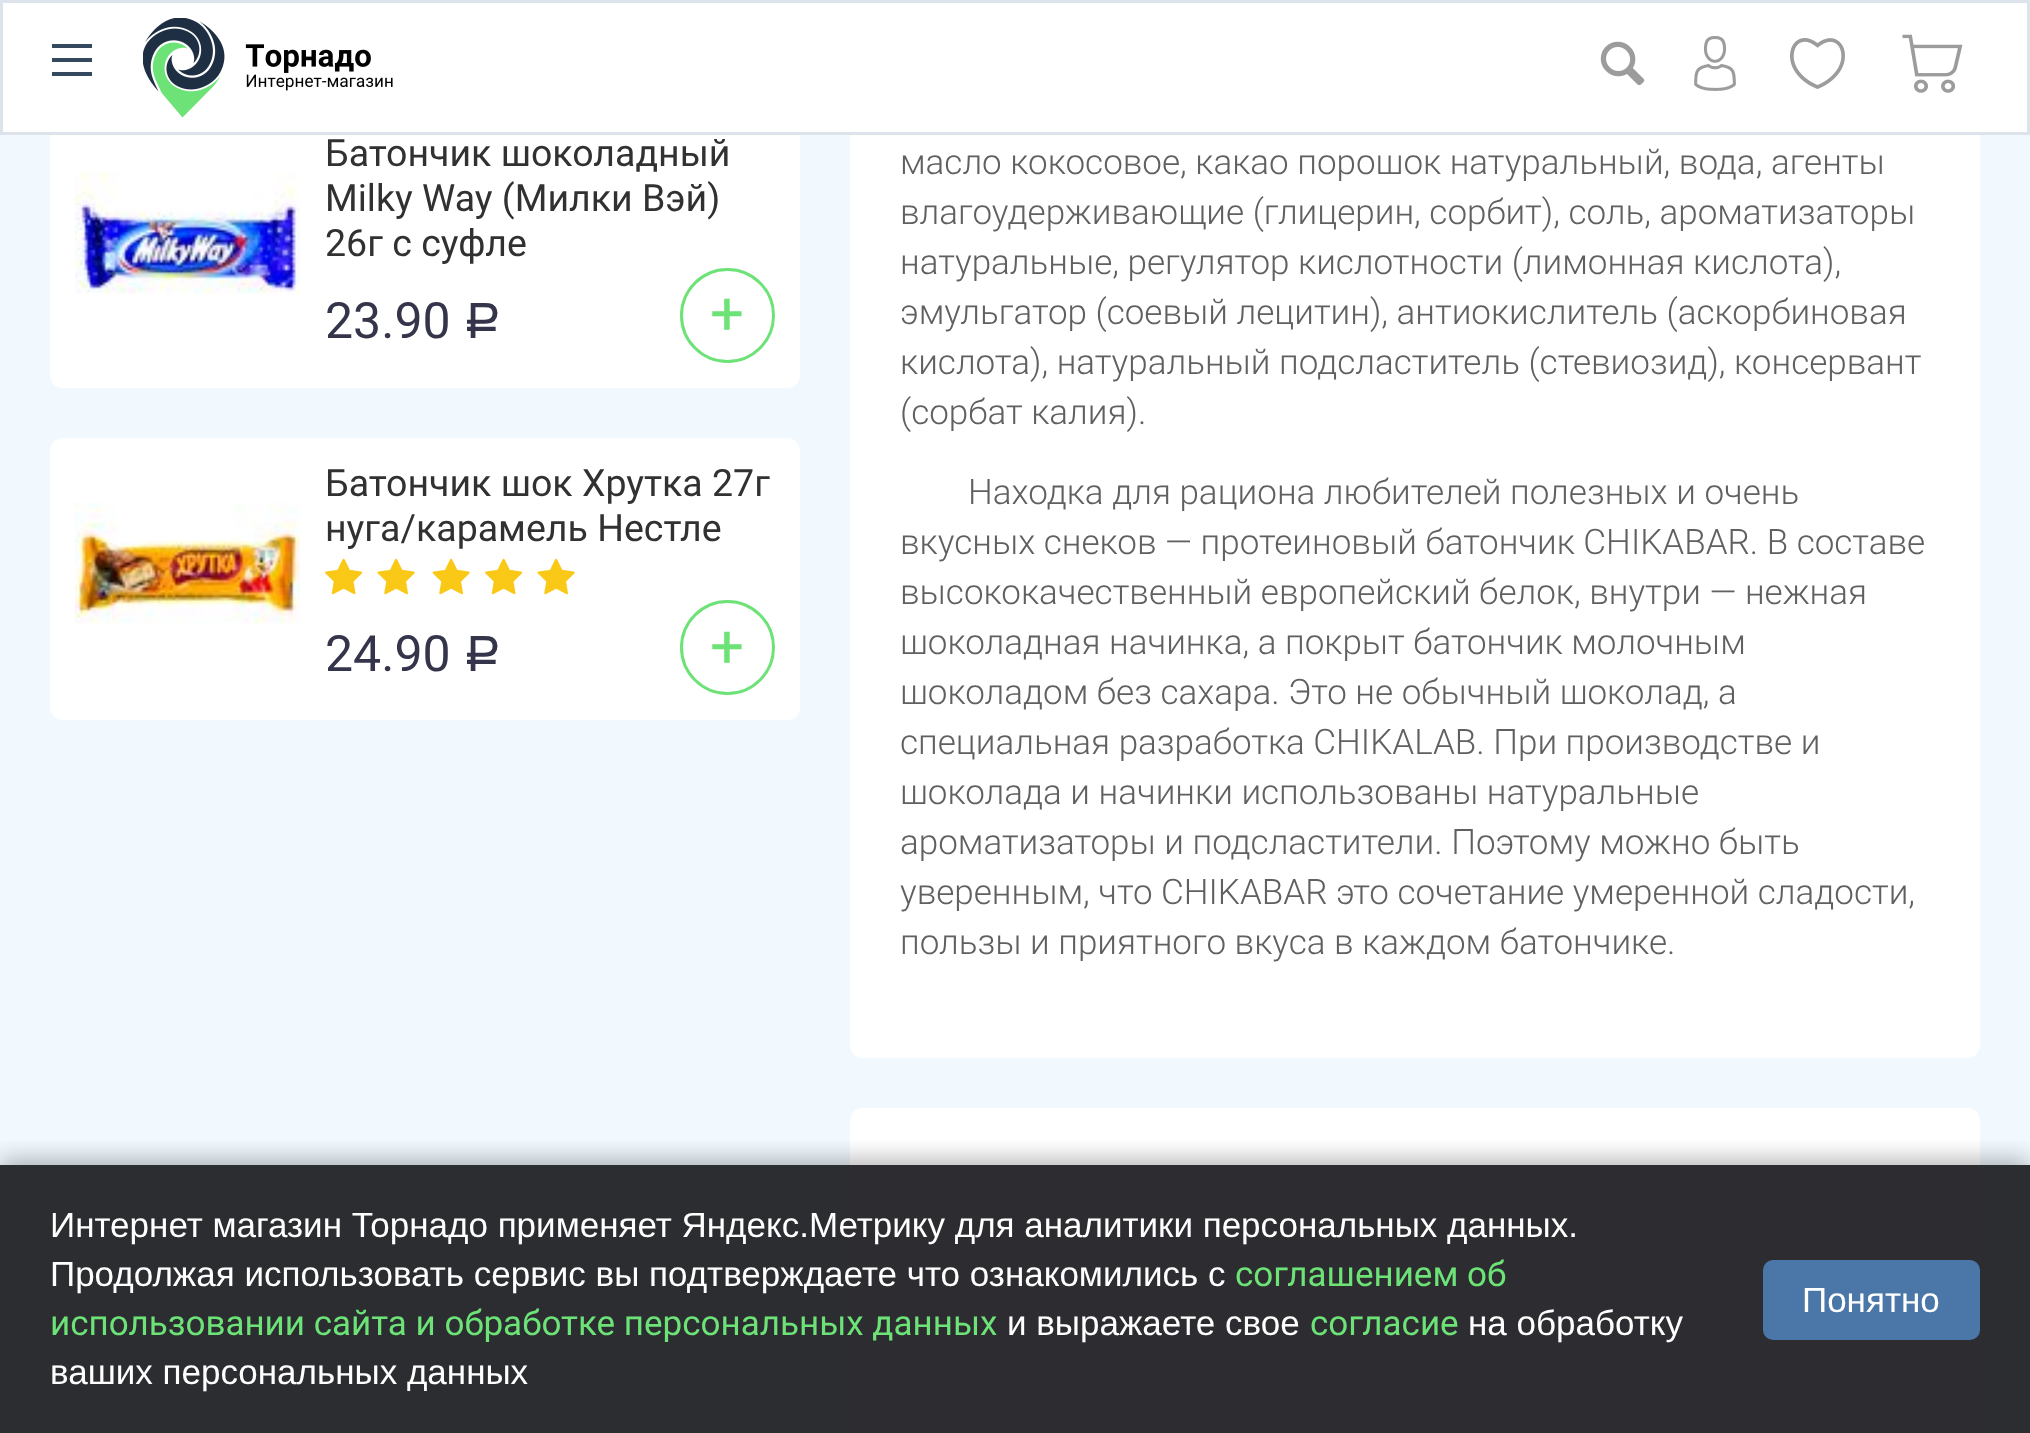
<svg xmlns="http://www.w3.org/2000/svg" xmlns:xlink="http://www.w3.org/1999/xlink" width="2030" height="1433" viewBox="0 0 2030 1433">
<style>
.cls-1{font:37.5px Roboto;fill:#313131}
.cls-2{font:50px Roboto;fill:#34354b}
.cls-3{font:50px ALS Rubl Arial;fill:#34354b}
.cls-4{font:60px Roboto;fill:#6ce277}
.cls-5{font:300 35px Roboto;fill:#606060}
.cls-6{font:35px Liberation Sans;fill:#ffffff}
.cls-7{font:35px Roboto;fill:#6ce277}
</style>
<defs>
<clipPath id="clip1"><rect x="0" y="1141" width="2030" height="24"/></clipPath>
</defs>
<rect width="100%" height="100%" fill="#f1f9ff"/>
<rect fill="#ffffff" x="50" y="108" width="750" height="280" rx="13"/>
<rect fill="#ffffff" x="850" y="-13" width="1130" height="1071" rx="13"/>
<rect fill="#ffffff" stroke="#dce3ea" stroke-width="3" x="1.5" y="1.5" width="2027" height="132"/>
<path fill="#34495e" d="M52 44H92V48H52ZM52 58H92V62H52ZM52 72H92V76H52Z"/>
<image xlink:href="image0.png" x="143" y="18" width="250" height="100"/>
<image xlink:href="image1.png" x="1600" y="41" width="45" height="45"/>
<image xlink:href="image2.png" x="1694" y="36" width="42" height="55"/>
<image xlink:href="image3.png" x="1790" y="38" width="55" height="51"/>
<image xlink:href="image4.png" x="1902" y="34" width="61" height="59"/>
<rect fill="#2c2d31" x="0" y="1165" width="2030" height="268"/>
<image xlink:href="image5.png" x="75" y="171" width="225" height="124"/>
<circle fill="none" stroke="#6ce277" stroke-width="3" cx="727.5" cy="315.5" r="46"/>
<rect fill="#ffffff" x="50" y="438" width="750" height="282" rx="13"/>
<image xlink:href="image6.png" x="75" y="502" width="225" height="123"/>
<image xlink:href="image7.png" x="325" y="558" width="38" height="37"/>
<image xlink:href="image8.png" x="377" y="558" width="38" height="37"/>
<image xlink:href="image8.png" x="432" y="558" width="38" height="37"/>
<image xlink:href="image7.png" x="485" y="558" width="38" height="37"/>
<image xlink:href="image8.png" x="537" y="558" width="38" height="37"/>
<circle fill="none" stroke="#6ce277" stroke-width="3" cx="727.5" cy="647.5" r="46"/>
<rect fill="#ffffff" x="850" y="1108" width="1130" height="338" rx="13"/>
<rect fill="#2d2d31" x="850" y="1165" width="1130" height="268"/>
<g clip-path="url(#clip1)">
<rect fill="#000000" fill-opacity="0.3" filter="blur(12.5px)" x="0" y="1160" width="2030" height="270"/>
</g>
<rect fill="#4a76a8" x="1763" y="1260" width="217" height="80" rx="10"/>
<text class="cls-1"><tspan x="325" y="166">Батончик шоколадный</tspan><tspan x="325" y="211">Milky Way (Милки Вэй)</tspan><tspan x="325" y="256">26г с суфле</tspan></text>
<text class="cls-2" x="325" y="338">23.90</text>
<text class="cls-3" x="463" y="338">Р</text>
<text class="cls-4" x="710" y="334">+</text>
<text class="cls-1"><tspan x="325" y="496">Батончик шок Хрутка 27г</tspan><tspan x="325" y="541">нуга/карамель Нестле</tspan></text>
<text class="cls-2" x="325" y="671">24.90</text>
<text class="cls-3" x="463" y="671">Р</text>
<text class="cls-4" x="710" y="667">+</text>
<text class="cls-5"><tspan x="900" y="174">масло кокосовое, какао порошок натуральный, вода, агенты</tspan><tspan x="900" y="224">влагоудерживающие (глицерин, сорбит), соль, ароматизаторы</tspan><tspan x="900" y="274">натуральные, регулятор кислотности (лимонная кислота),</tspan><tspan x="900" y="324">эмульгатор (соевый лецитин), антиокислитель (аскорбиновая</tspan><tspan x="900" y="374">кислота), натуральный подсластитель (стевиозид), консервант</tspan><tspan x="900" y="424">(сорбат калия).</tspan></text>
<text class="cls-5" x="968" y="504">Находка для рациона любителей полезных и очень</text>
<text class="cls-5"><tspan x="900" y="554">вкусных снеков — протеиновый батончик CHIKABAR. В составе</tspan><tspan x="900" y="604">высококачественный европейский белок, внутри — нежная</tspan><tspan x="900" y="654">шоколадная начинка, а покрыт батончик молочным</tspan><tspan x="900" y="704">шоколадом без сахара. Это не обычный шоколад, а</tspan><tspan x="900" y="754">специальная разработка CHIKALAB. При производстве и</tspan><tspan x="900" y="804">шоколада и начинки использованы натуральные</tspan><tspan x="900" y="854">ароматизаторы и подсластители. Поэтому можно быть</tspan><tspan x="900" y="904">уверенным, что CHIKABAR это сочетание умеренной сладости,</tspan><tspan x="900" y="954">пользы и приятного вкуса в каждом батончике.</tspan></text>
<text class="cls-6"><tspan x="50" y="1237">Интернет магазин Торнадо применяет Яндекс.Метрику для аналитики персональных данных.</tspan><tspan x="50" y="1286">Продолжая использовать сервис вы подтверждаете что ознакомились с</tspan></text>
<text class="cls-7" x="1235" y="1286">соглашением об</text>
<text class="cls-7" x="50" y="1335">использовании сайта и обработке персональных данных</text>
<text class="cls-6" x="1007" y="1335">и выражаете свое</text>
<text class="cls-7" x="1310" y="1335">согласие</text>
<text class="cls-6" x="1468" y="1335">на обработку</text>
<text class="cls-6" x="50" y="1384">ваших персональных данных</text>
<text class="cls-6" x="1802" y="1312">Понятно</text>
</svg>
